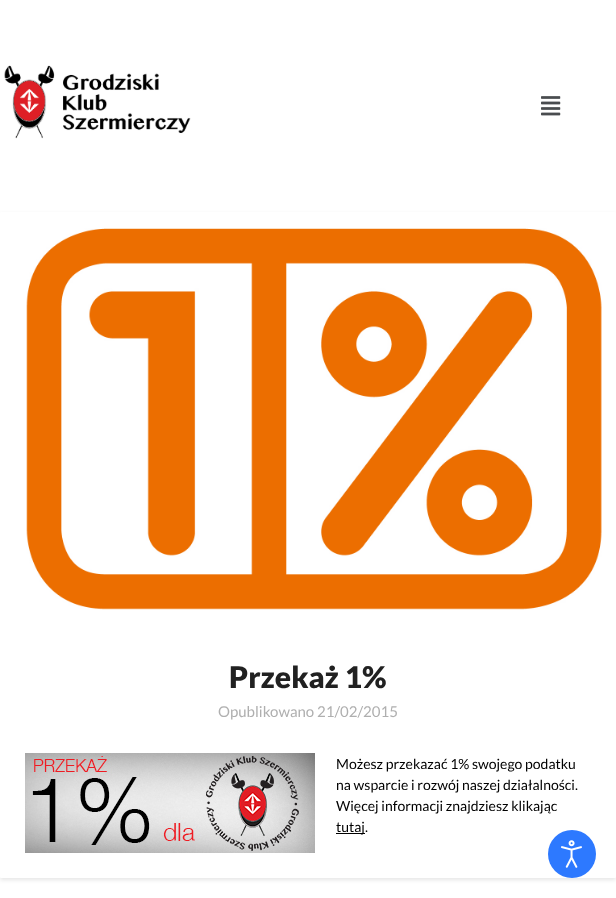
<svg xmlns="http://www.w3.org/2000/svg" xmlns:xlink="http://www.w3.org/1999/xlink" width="616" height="898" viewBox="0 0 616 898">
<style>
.cls-1{font:900 30px Lato;fill:#212121}
.cls-2{font:15px Lato;fill:#afafaf}
.cls-3{font:14px Lato;fill:#000000}
</style>
<rect width="100%" height="100%" fill="#ffffff"/>
<image xlink:href="image0.png" x="4" y="65" width="187" height="74"/>
<image xlink:href="image1.png" x="541" y="96" width="20" height="20"/>
<rect fill="#000000" fill-opacity="0.1" filter="blur(2px)" x="0" y="214" width="616" height="666" rx="1"/>
<rect fill="#ffffff" x="0" y="212" width="616" height="666" rx="1"/>
<image xlink:href="image2.png" x="26" y="228" width="576" height="382"/>
<image xlink:href="image3.png" x="25" y="753" width="290" height="100"/>
<rect fill="#000000" x="336" y="833" width="29" height="1"/>
<circle fill="#2d79ff" cx="572" cy="854" r="24"/>
<image xlink:href="image4.png" x="561" y="840" width="21" height="28"/>
<text class="cls-1" x="229" y="688">Przekaż 1%</text>
<text class="cls-2" x="218" y="717">Opublikowano 21/02/2015</text>
<text class="cls-3"><tspan x="336" y="769">Możesz przekazać 1% swojego podatku</tspan><tspan x="336" y="790">na wsparcie i rozwój naszej działalności.</tspan><tspan x="336" y="811">Więcej informacji znajdziesz klikając</tspan><tspan x="336" y="832">tutaj.</tspan></text>
</svg>
